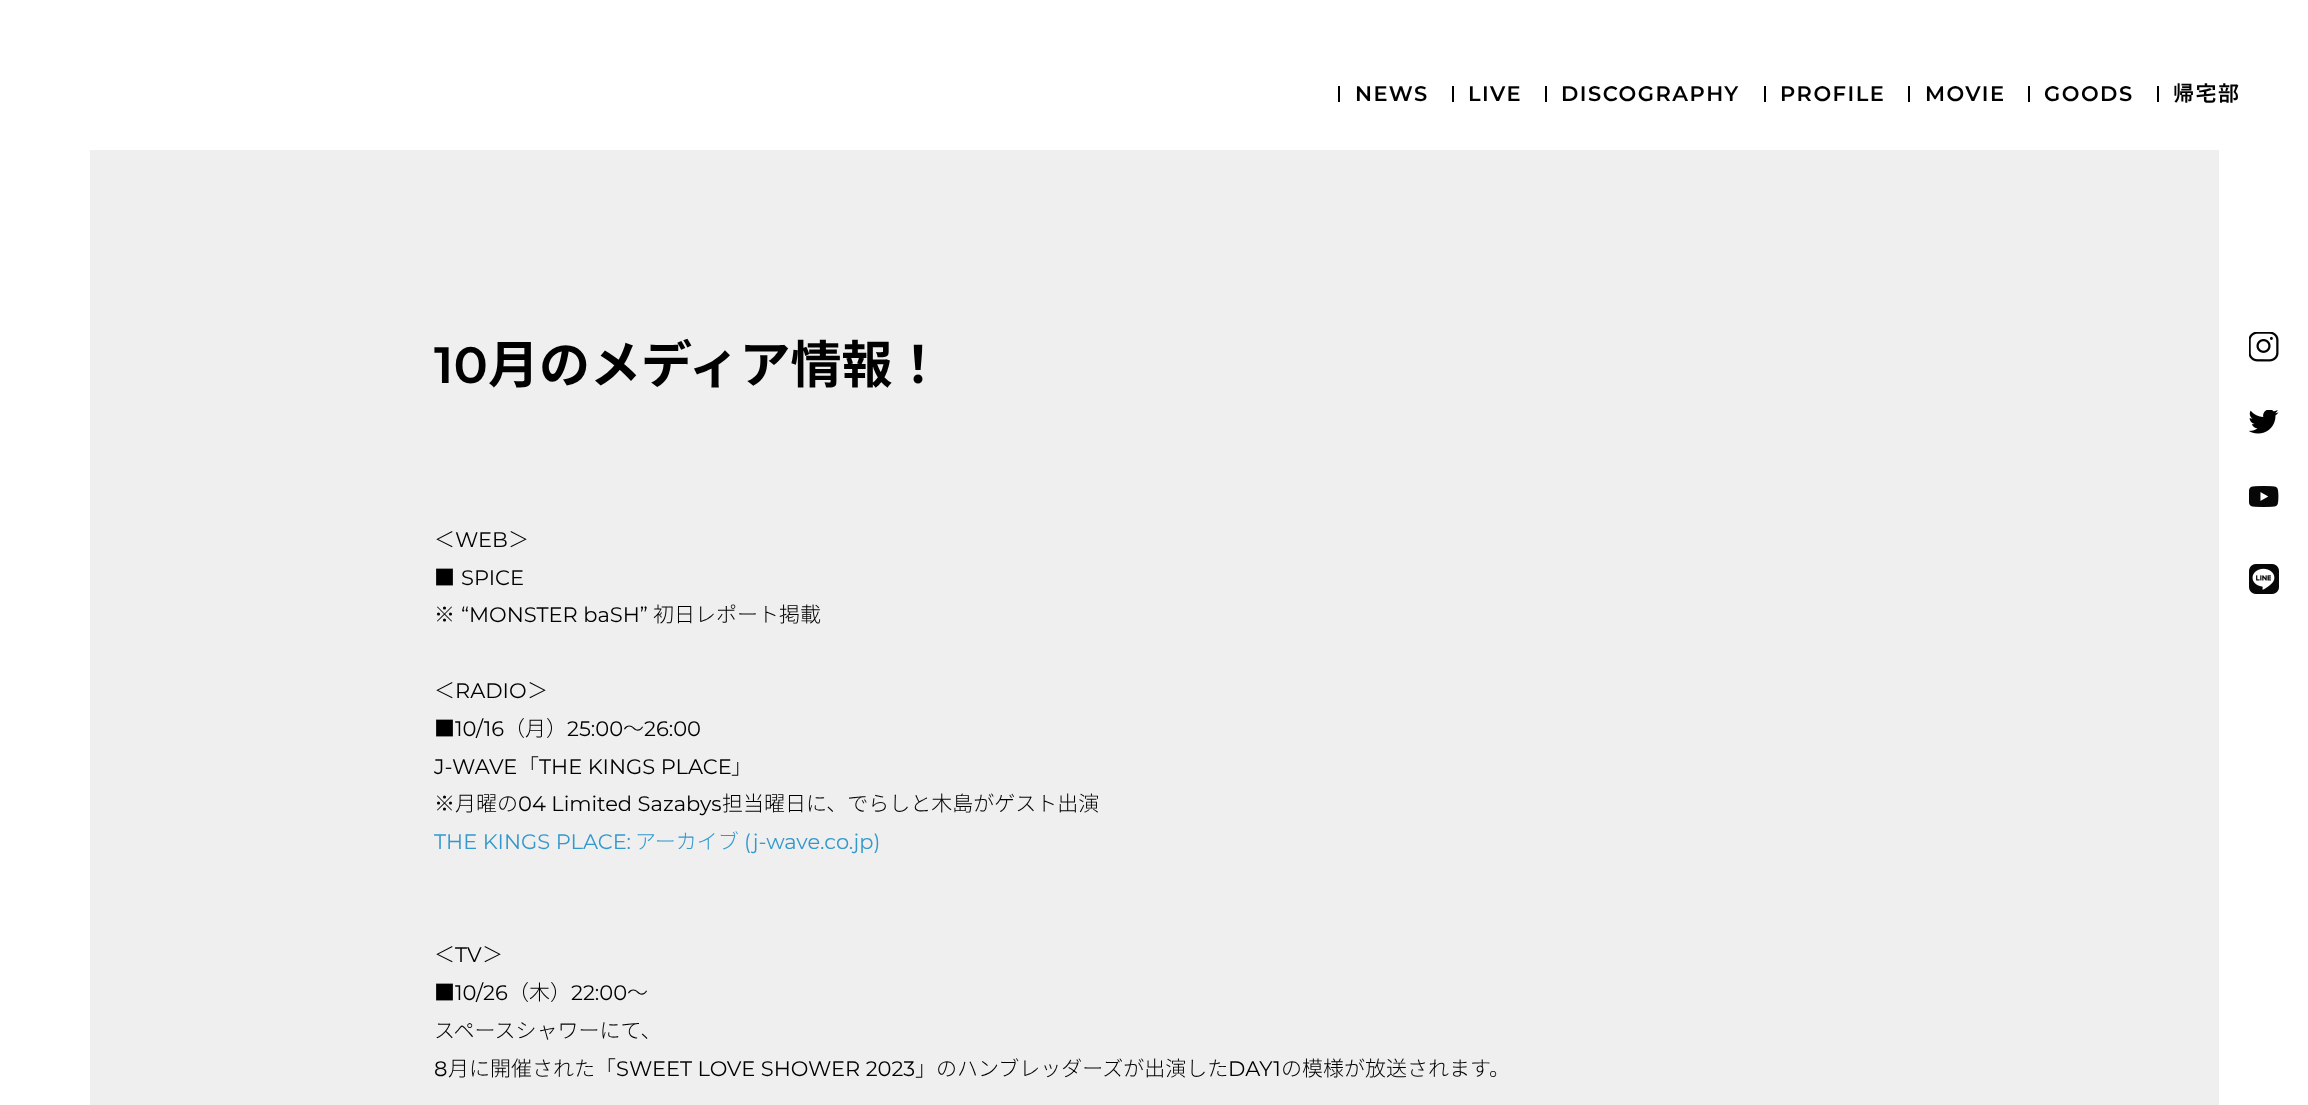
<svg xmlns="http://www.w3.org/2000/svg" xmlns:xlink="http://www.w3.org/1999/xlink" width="2308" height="1105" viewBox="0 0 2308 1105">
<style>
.cls-1{font:600 21px Montserrat;letter-spacing:1.5px;fill:#000000}
.cls-2{font:600 21px Noto Sans JP;letter-spacing:1.5px;fill:#000000}
.cls-3{font:600 51px Montserrat;fill:#000000}
.cls-4{font:bold 51px Noto Sans JP;fill:#000000}
.cls-5{font:300 21px Noto Sans JP;fill:#000000}
.cls-6{font:21px Montserrat;fill:#000000}
.cls-7{font:21px Montserrat;fill:#3399cc}
.cls-8{font:300 21px Noto Sans JP;fill:#3399cc}
</style>
<rect width="100%" height="100%" fill="#ffffff"/>
<rect fill="#000000" x="1338" y="86" width="2" height="16"/>
<rect fill="#000000" x="1452" y="86" width="2" height="16"/>
<rect fill="#000000" x="1545" y="86" width="2" height="16"/>
<rect fill="#000000" x="1764" y="86" width="2" height="16"/>
<rect fill="#000000" x="1908" y="86" width="2" height="16"/>
<rect fill="#000000" x="2028" y="86" width="2" height="16"/>
<rect fill="#000000" x="2157" y="86" width="2" height="16"/>
<rect fill="#efefef" x="90" y="150" width="2129" height="955"/>
<image xlink:href="image0.png" x="2249" y="332" width="30" height="30"/>
<image xlink:href="image1.png" x="2249" y="410" width="30" height="24"/>
<image xlink:href="image2.png" x="2249" y="486" width="30" height="21"/>
<image xlink:href="image3.png" x="2249" y="564" width="30" height="30"/>
<text class="cls-1" x="1355" y="101">NEWS</text>
<text class="cls-1" x="1468" y="101">LIVE</text>
<text class="cls-1" x="1561" y="101">DISCOGRAPHY</text>
<text class="cls-1" x="1780" y="101">PROFILE</text>
<text class="cls-1" x="1925" y="101">MOVIE</text>
<text class="cls-1" x="2044" y="101">GOODS</text>
<text class="cls-2" x="2173" y="101">帰宅部</text>
<text class="cls-3" x="434" y="383">10</text>
<text class="cls-4" x="488" y="383">月のメディア情報！</text>
<text class="cls-5" x="434" y="547">＜</text>
<text class="cls-6" x="455" y="547">WEB</text>
<text class="cls-5" x="508" y="547">＞</text>
<text class="cls-5" x="434" y="585">■</text>
<text class="cls-6" x="461" y="585">SPICE</text>
<text class="cls-5" x="434" y="622">※</text>
<text class="cls-6" x="461" y="622">“MONSTER baSH”</text>
<text class="cls-5" x="653" y="622">初日レポート掲載</text>
<text class="cls-5" x="434" y="698">＜</text>
<text class="cls-6" x="455" y="698">RADIO</text>
<text class="cls-5" x="527" y="698">＞</text>
<text class="cls-5" x="434" y="736">■</text>
<text class="cls-6" x="455" y="736">10/16</text>
<text class="cls-5" x="504" y="736">（月）</text>
<text class="cls-6" x="567" y="736">25:00</text>
<text class="cls-5" x="623" y="736">〜</text>
<text class="cls-6" x="644" y="736">26:00</text>
<text class="cls-6" x="434" y="774">J-WAVE</text>
<text class="cls-5" x="518" y="774">「</text>
<text class="cls-6" x="539" y="774">THE KINGS PLACE</text>
<text class="cls-5" x="731" y="774">」</text>
<text class="cls-5" x="434" y="811">※月曜の</text>
<text class="cls-6" x="518" y="811">04 Limited Sazabys</text>
<text class="cls-5" x="722" y="811">担当曜日に、でらしと木島がゲスト出演</text>
<text class="cls-7" x="434" y="849">THE KINGS PLACE:</text>
<text class="cls-8" x="635" y="849">アーカイブ</text>
<text class="cls-7" x="744" y="849">(j-wave.co.jp)</text>
<text class="cls-5" x="434" y="962">＜</text>
<text class="cls-6" x="455" y="962">TV</text>
<text class="cls-5" x="482" y="962">＞</text>
<text class="cls-5" x="434" y="1000">■</text>
<text class="cls-6" x="455" y="1000">10/26</text>
<text class="cls-5" x="508" y="1000">（木）</text>
<text class="cls-6" x="571" y="1000">22:00</text>
<text class="cls-5" x="627" y="1000">～</text>
<text class="cls-5" x="434" y="1038">スペースシャワーにて、</text>
<text class="cls-6" x="434" y="1076">8</text>
<text class="cls-5" x="448" y="1076">月に開催された「</text>
<text class="cls-6" x="616" y="1076">SWEET LOVE SHOWER 2023</text>
<text class="cls-5" x="915" y="1076">」のハンブレッダーズが出演した</text>
<text class="cls-6" x="1228" y="1076">DAY1</text>
<text class="cls-5" x="1281" y="1076">の模様が放送されます。</text>
</svg>
